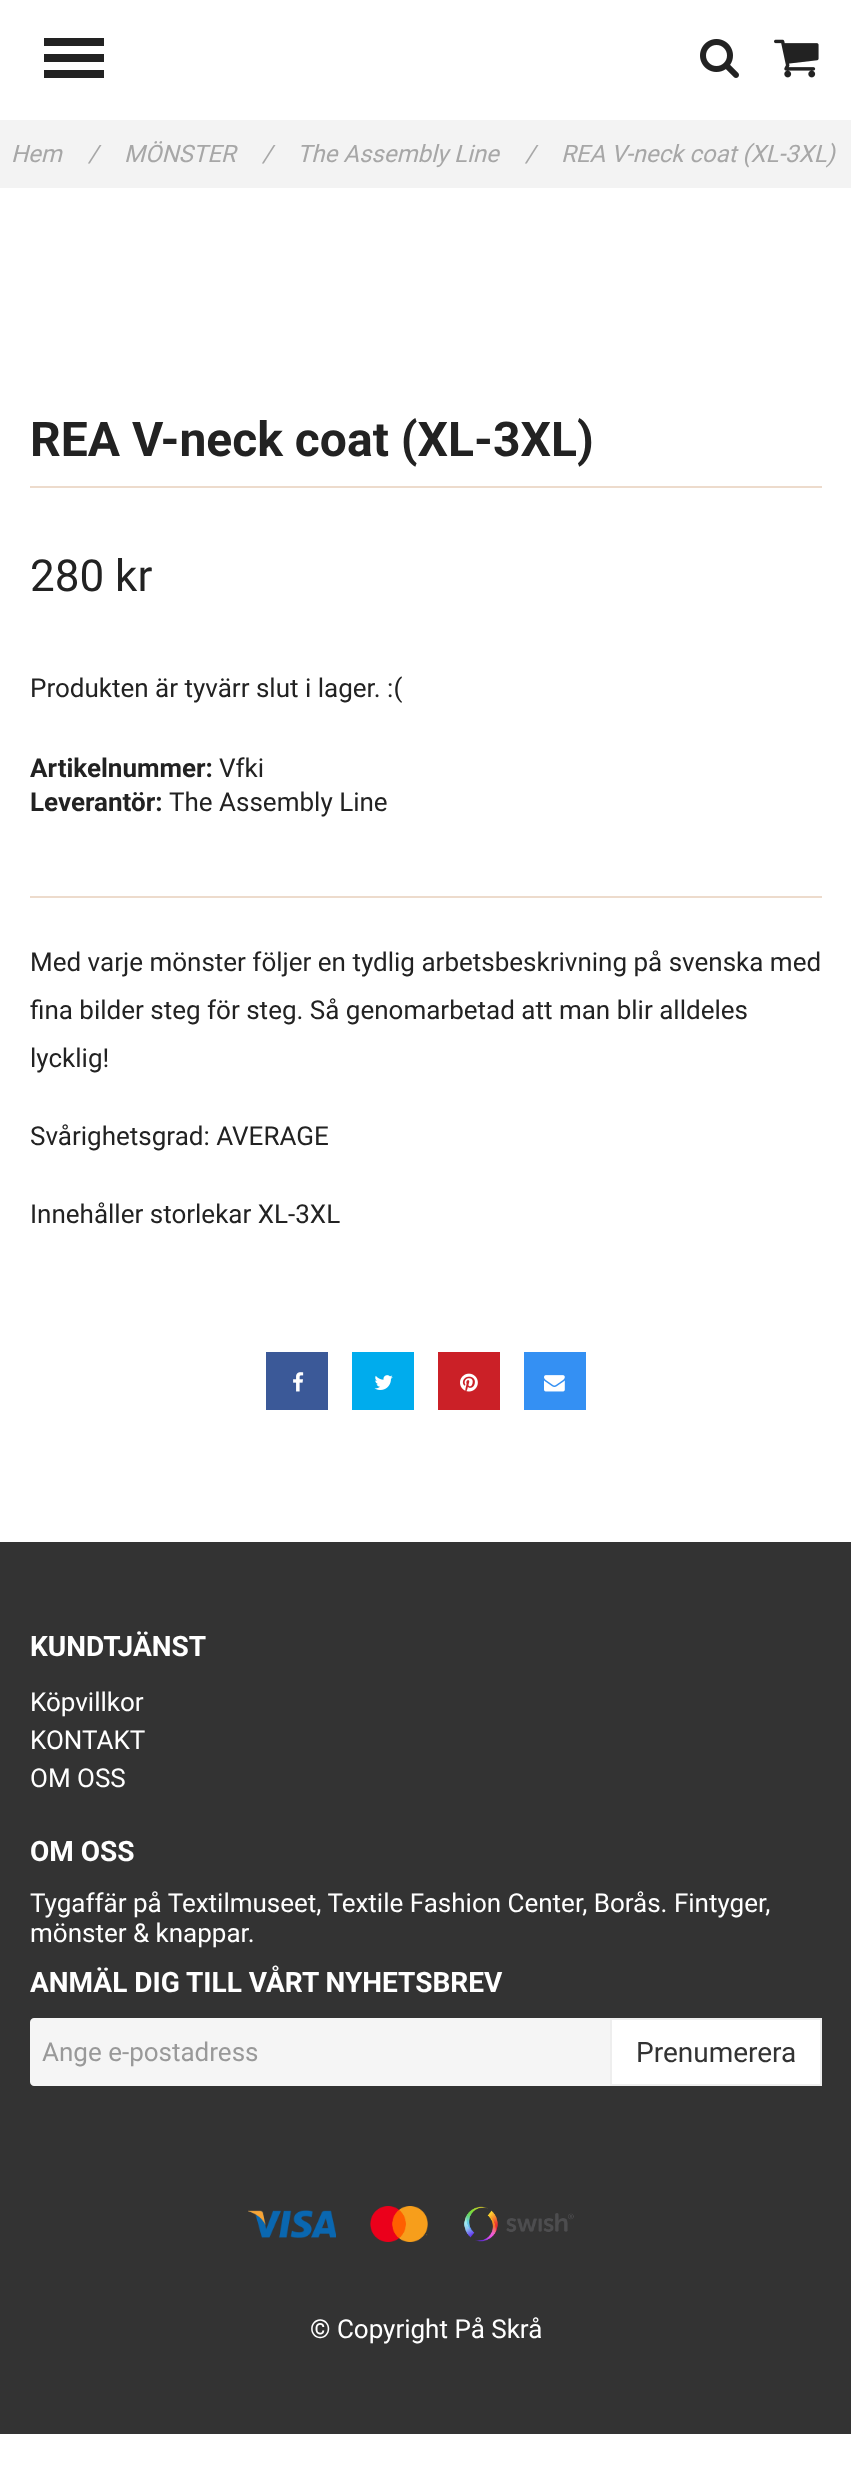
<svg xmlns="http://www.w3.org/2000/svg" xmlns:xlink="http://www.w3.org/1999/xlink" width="851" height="2467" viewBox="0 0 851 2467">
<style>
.cls-1{font:italic 24px Roboto;fill:#a7a7a7}
.cls-2{font:bold 48px Roboto;fill:#222222}
.cls-3{font:44px Roboto;fill:#222222}
.cls-4{font:26px Roboto;fill:#222222}
.cls-5{font:bold 26px Roboto;fill:#222222}
.cls-6{font:bold 28px Roboto;fill:#ffffff}
.cls-7{font:26px Roboto;fill:#ffffff}
.cls-8{font:26px Roboto;fill:#999999}
.cls-9{font:28px Roboto;fill:#333333}
</style>
<rect width="100%" height="100%" fill="#ffffff"/>
<rect fill="#222222" x="44" y="54" width="60" height="8"/>
<rect fill="#222222" x="44" y="38" width="60" height="8"/>
<rect fill="#222222" x="44" y="70" width="60" height="8"/>
<image xlink:href="image0.png" x="700" y="39" width="39" height="39"/>
<image xlink:href="image1.png" x="774" y="39" width="45" height="39"/>
<rect fill="#f3f3f3" x="0" y="120" width="851" height="68"/>
<rect fill="#eddbcc" x="30" y="486" width="792" height="2"/>
<rect fill="#eddbcc" x="30" y="896" width="792" height="2"/>
<rect fill="#3b5998" x="266" y="1352" width="62" height="58"/>
<image xlink:href="image2.png" x="293" y="1372" width="11" height="20"/>
<rect fill="#00aced" x="352" y="1352" width="62" height="58"/>
<image xlink:href="image3.png" x="374" y="1375" width="19" height="15"/>
<rect fill="#cb2027" x="438" y="1352" width="62" height="58"/>
<image xlink:href="image4.png" x="460" y="1373" width="18" height="19"/>
<rect fill="#3490f3" x="524" y="1352" width="62" height="58"/>
<image xlink:href="image5.png" x="544" y="1375" width="21" height="17"/>
<rect fill="#333333" x="0" y="1542" width="851" height="892"/>
<path fill="#f5f5f5" d="M34 2018H612V2086H34C32 2086 30 2084 30 2082V2022C30 2020 32 2018 34 2018Z"/>
<rect fill="#ffffff" stroke="#eeeeee" stroke-width="2" x="611" y="2019" width="210" height="66"/>
<image xlink:href="image6.png" x="248" y="2210" width="88" height="28"/>
<image xlink:href="image7.png" x="370" y="2206" width="58" height="36"/>
<image xlink:href="image8.png" x="464" y="2206" width="110" height="36"/>
<text class="cls-1" x="11" y="162">Hem</text>
<text class="cls-1" x="88" y="162">/</text>
<text class="cls-1" x="124" y="162">MÖNSTER</text>
<text class="cls-1" x="262" y="162">/</text>
<text class="cls-1" x="297" y="162">The Assembly Line</text>
<text class="cls-1" x="525" y="162">/</text>
<text class="cls-1" x="561" y="162">REA V-neck coat (XL-3XL)</text>
<text class="cls-2" x="30" y="456">REA V-neck coat (XL-3XL)</text>
<text class="cls-3" x="30" y="591">280 kr</text>
<text class="cls-4" x="30" y="697">Produkten är tyvärr slut i lager. :(</text>
<text class="cls-5" x="30" y="777">Artikelnummer:</text>
<text class="cls-4" x="219" y="777">Vfki</text>
<text class="cls-5" x="30" y="811">Leverantör:</text>
<text class="cls-4" x="169" y="811">The Assembly Line</text>
<text class="cls-4"><tspan x="30" y="971">Med varje mönster följer en tydlig arbetsbeskrivning på svenska med</tspan><tspan x="30" y="1019">fina bilder steg för steg. Så genomarbetad att man blir alldeles</tspan><tspan x="30" y="1067">lycklig!</tspan></text>
<text class="cls-4" x="30" y="1145">Svårighetsgrad: AVERAGE</text>
<text class="cls-4" x="30" y="1223">Innehåller storlekar XL-3XL</text>
<text class="cls-6" x="30" y="1656">KUNDTJÄNST</text>
<text class="cls-7"><tspan x="30" y="1711">Köpvillkor</tspan><tspan x="30" y="1749">KONTAKT</tspan><tspan x="30" y="1787">OM OSS</tspan></text>
<text class="cls-6" x="30" y="1861">OM OSS</text>
<text class="cls-7"><tspan x="30" y="1912">Tygaffär på Textilmuseet, Textile Fashion Center, Borås. Fintyger,</tspan><tspan x="30" y="1942">mönster &amp; knappar.</tspan></text>
<text class="cls-6" x="30" y="1992">ANMÄL DIG TILL VÅRT NYHETSBREV</text>
<text class="cls-8" x="42" y="2061">Ange e-postadress</text>
<text class="cls-9" x="636" y="2062">Prenumerera</text>
<text class="cls-7" x="310" y="2338">© Copyright På Skrå</text>
</svg>
